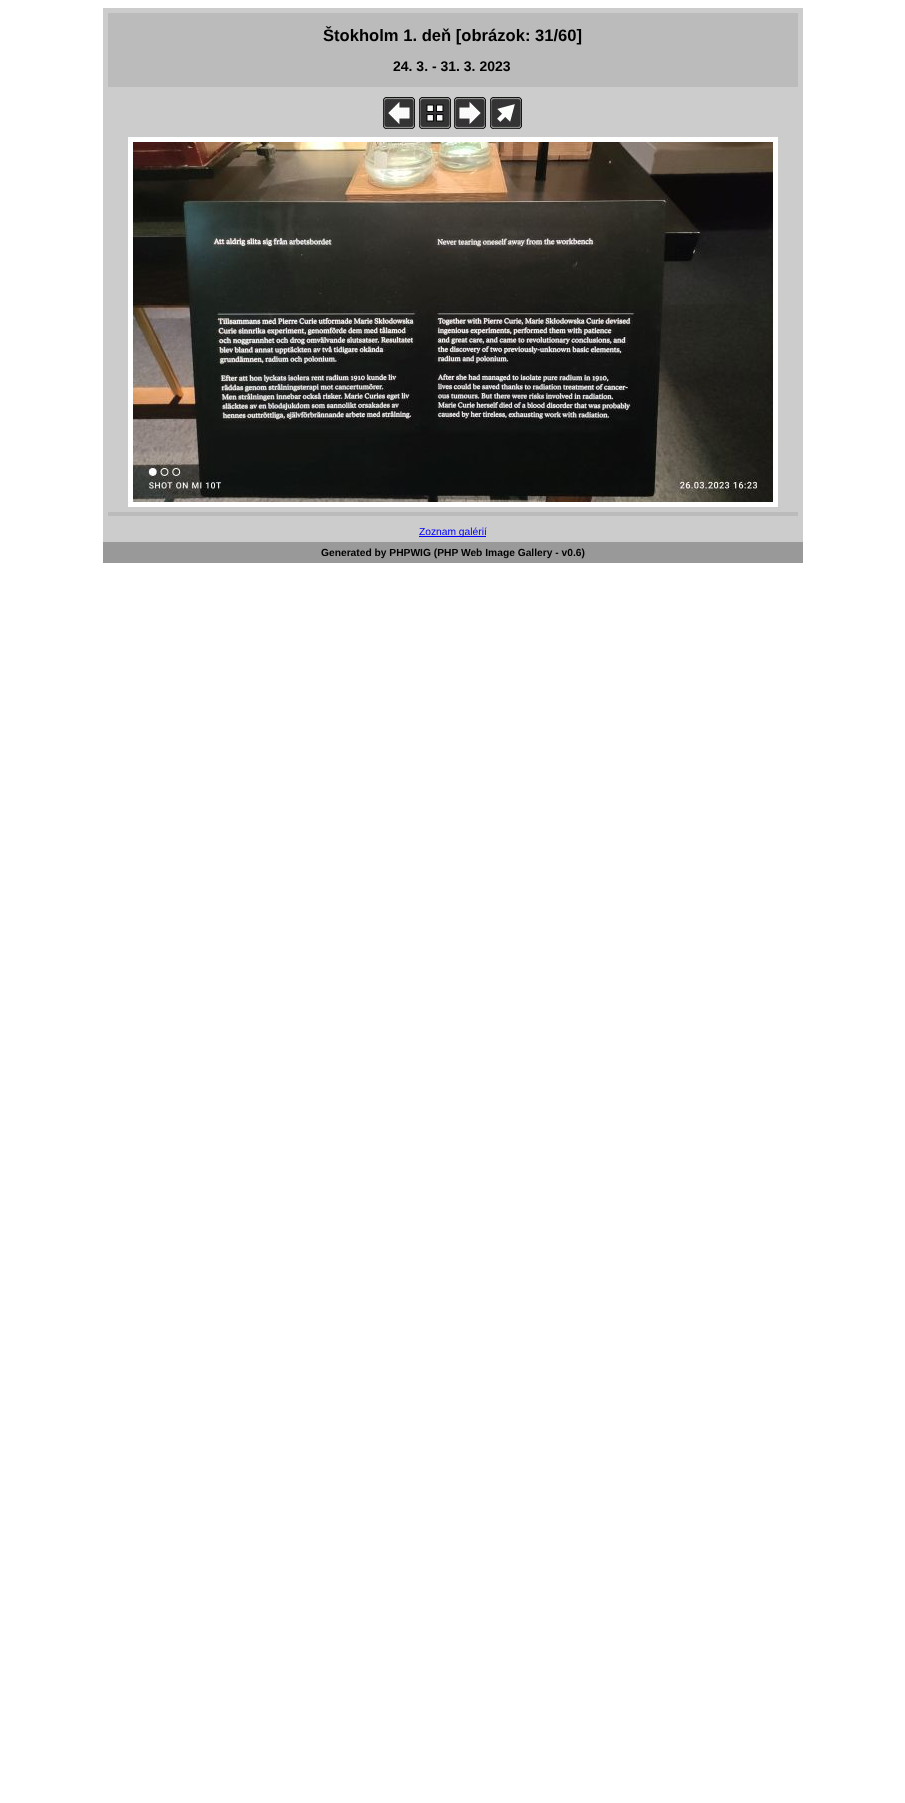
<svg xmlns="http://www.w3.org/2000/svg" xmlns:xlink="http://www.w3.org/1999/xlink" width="905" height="1803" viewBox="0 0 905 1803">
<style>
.cls-1{font:bold 16.6px Liberation Sans;fill:#000000}
.cls-2{font:bold 14px Liberation Sans;fill:#000000}
.cls-3{font:10.25px Liberation Sans;fill:#0000ff}
.cls-4{font:bold 10.25px Liberation Sans;fill:#000000}
</style>
<rect width="100%" height="100%" fill="#ffffff"/>
<rect fill="#cccccc" x="103" y="8" width="700" height="534"/>
<rect fill="#bbbbbb" x="108" y="13" width="690" height="74"/>
<image xlink:href="image0.png" x="383" y="97" width="32" height="32"/>
<image xlink:href="image1.png" x="419" y="97" width="32" height="32"/>
<image xlink:href="image2.png" x="454" y="97" width="32" height="32"/>
<image xlink:href="image3.png" x="490" y="97" width="32" height="32"/>
<rect fill="#ffffff" x="128" y="137" width="650" height="370"/>
<image xlink:href="image4.png" x="133" y="142" width="640" height="360"/>
<rect fill="#bbbbbb" x="108" y="512" width="690" height="4"/>
<rect fill="#0000ff" x="419" y="536" width="67" height="1"/>
<rect fill="#999999" x="103" y="542" width="700" height="21"/>
<text class="cls-1" x="323" y="41">Štokholm 1. deň [obrázok: 31/60]</text>
<text class="cls-2" x="393" y="71">24. 3. - 31. 3. 2023</text>
<text class="cls-3" x="419" y="535">Zoznam galérií</text>
<text class="cls-4" x="321" y="556">Generated by PHPWIG (PHP Web Image Gallery - v0.6)</text>
</svg>
